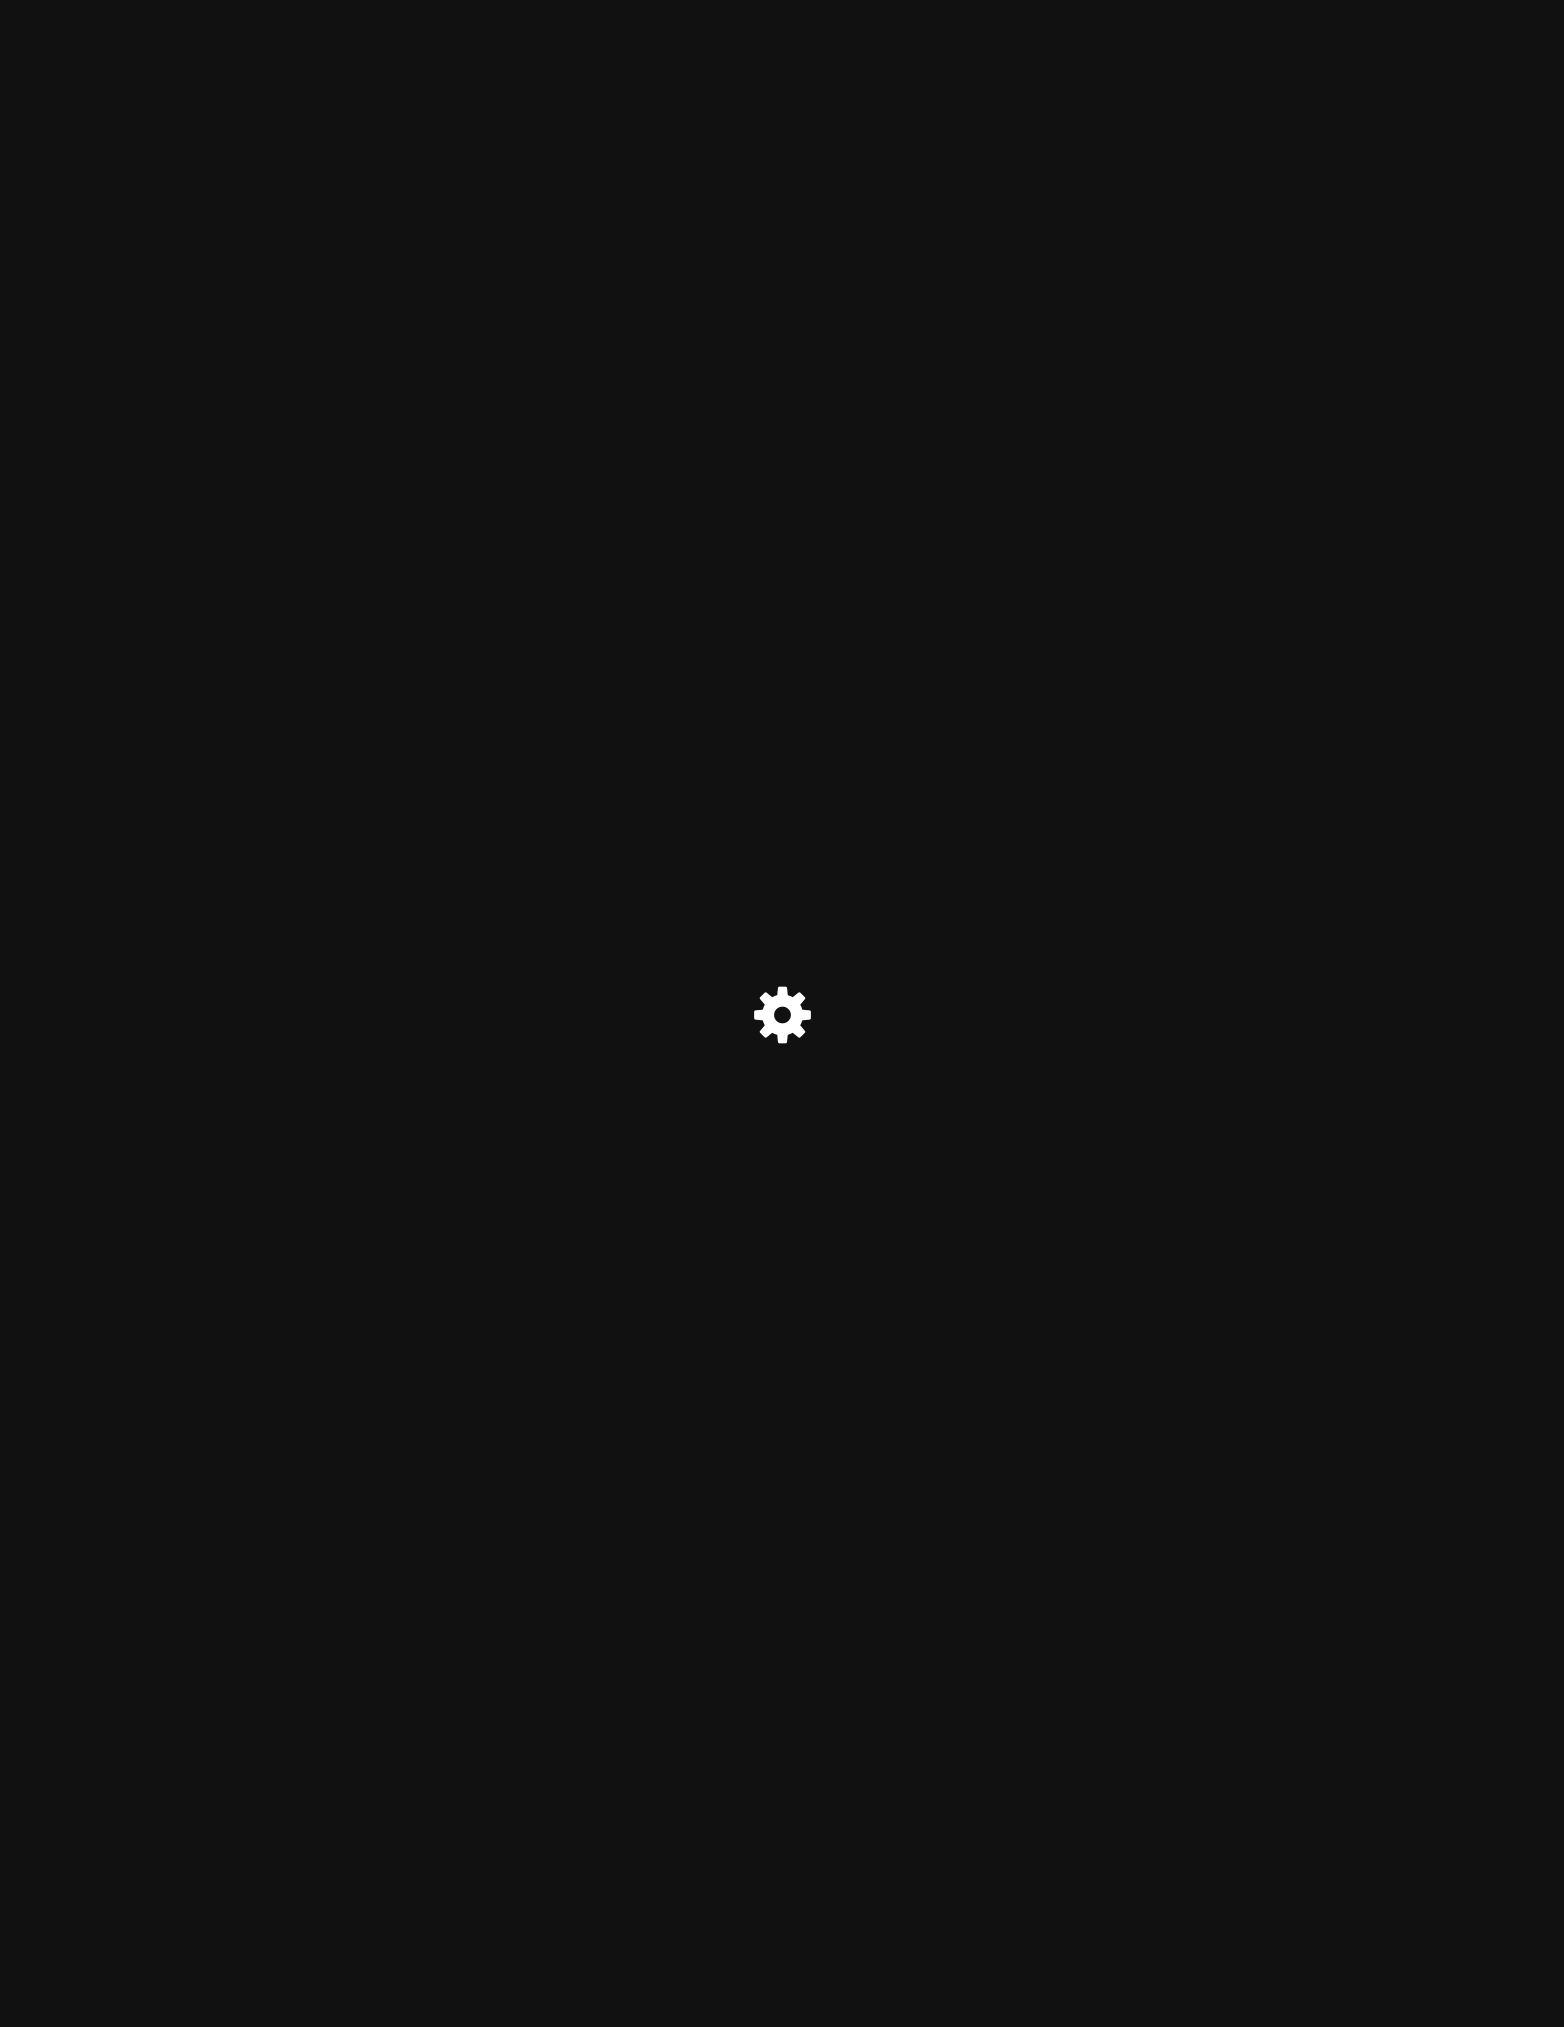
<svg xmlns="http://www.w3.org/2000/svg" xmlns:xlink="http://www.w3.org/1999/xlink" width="1564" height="2027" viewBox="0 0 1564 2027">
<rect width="100%" height="100%" fill="#111111"/>
<image xlink:href="image0.png" x="754" y="986" width="57" height="58"/>
</svg>
